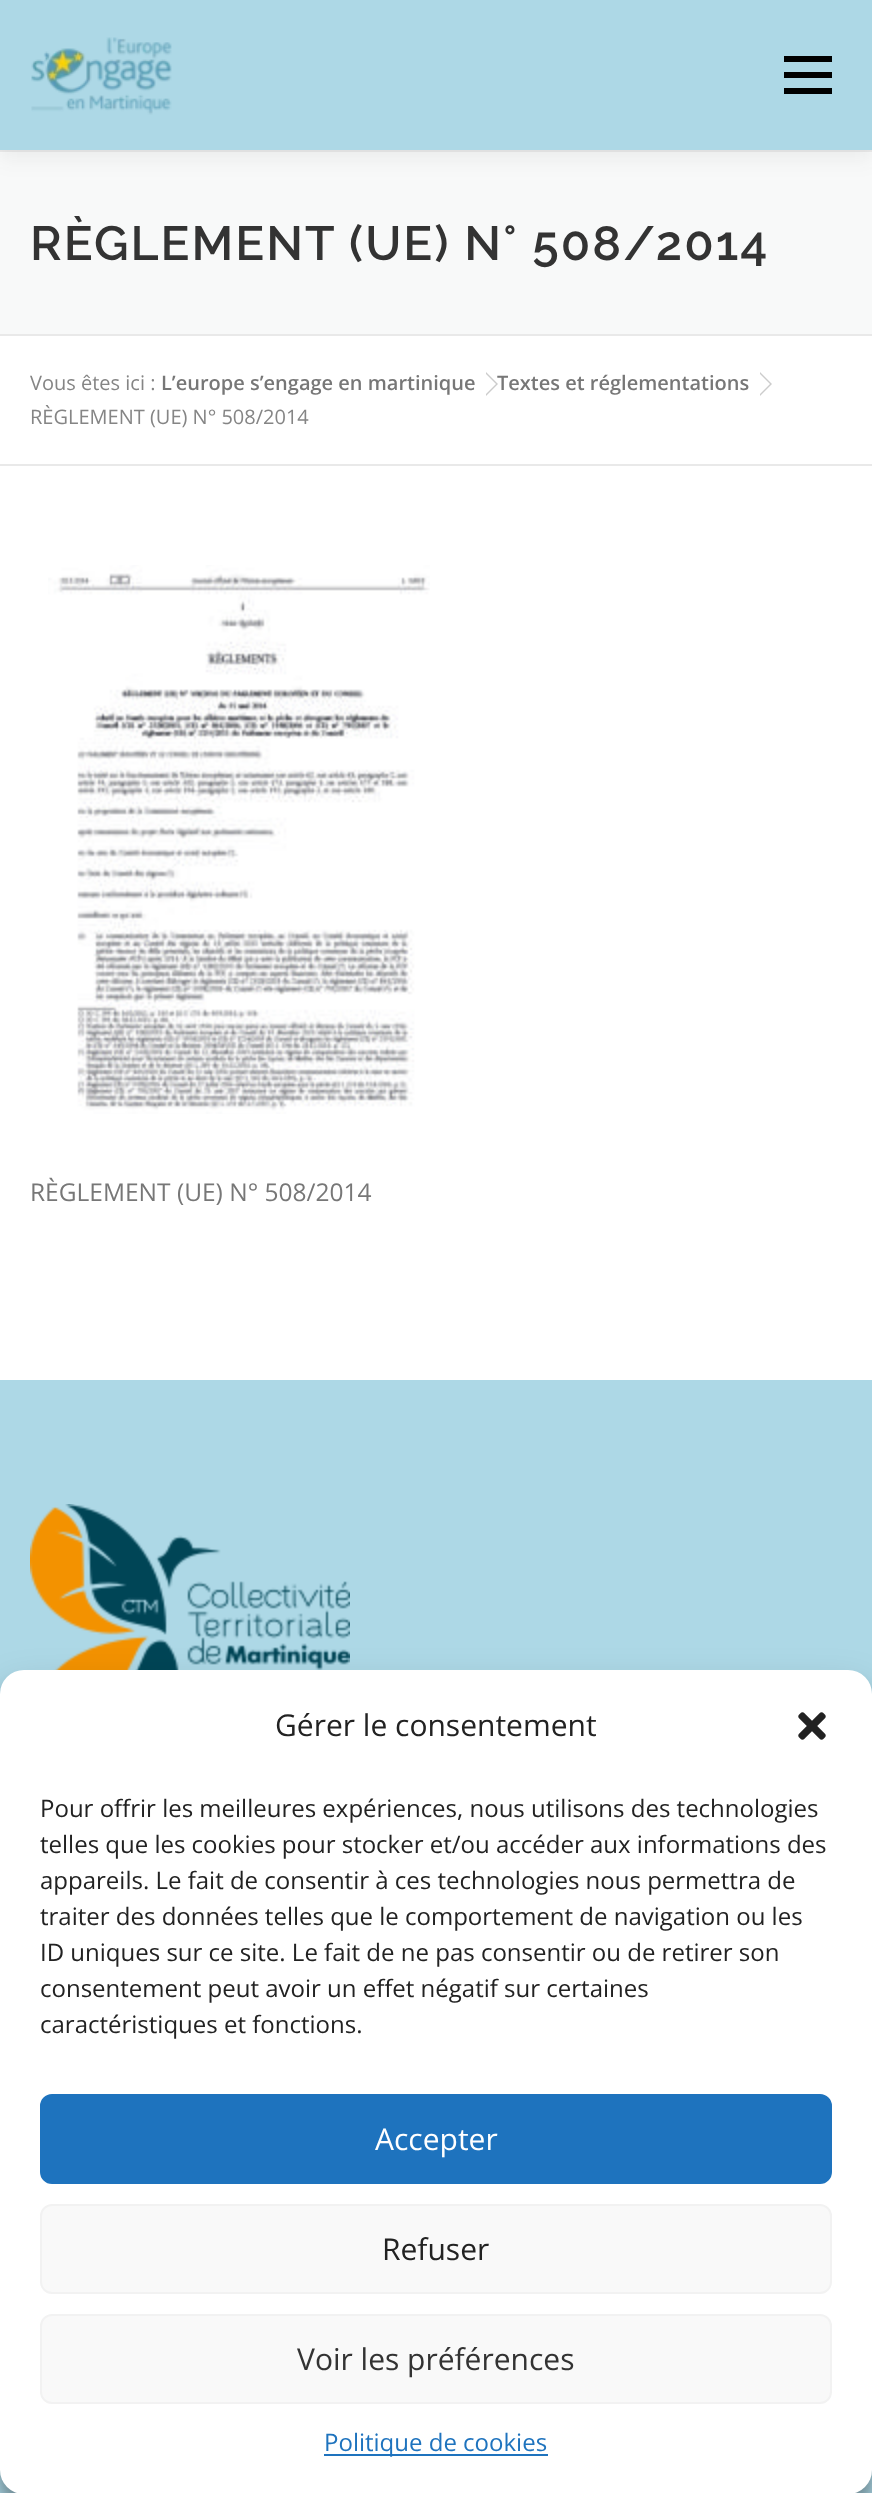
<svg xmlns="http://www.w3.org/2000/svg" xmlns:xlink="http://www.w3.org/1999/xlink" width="872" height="2493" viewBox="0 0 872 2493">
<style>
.cls-1{font:600 48px Raleway;letter-spacing:2px;fill:#333333}
.cls-2{font:20px Open Sans;fill:#858585}
.cls-3{font:600 20px Open Sans;fill:#777777}
.cls-4{font:24.5px Open Sans;fill:#777777}
.cls-5{font:30px Open Sans;fill:#222222}
.cls-6{font:24px Open Sans;fill:#222222}
.cls-7{font:30px Open Sans;fill:#ffffff}
.cls-8{font:30px Open Sans;fill:#333333}
.cls-9{font:24px Open Sans;fill:#1e73be}
</style>
<rect width="100%" height="100%" fill="#ffffff"/>
<rect fill="#f8f9f9" x="0" y="152" width="872" height="182"/>
<rect fill="#e9e9e9" x="0" y="150" width="872" height="2"/>
<rect fill="#323232" fill-opacity="0.06" filter="blur(10px)" x="0" y="10" width="872" height="150"/>
<rect fill="#add8e6" x="0" y="0" width="872" height="150"/>
<image xlink:href="image0.png" x="31" y="37" width="141" height="78"/>
<rect fill="#000000" x="784" y="72" width="48" height="6"/>
<rect fill="#000000" x="784" y="56" width="48" height="6"/>
<rect fill="#000000" x="784" y="88" width="48" height="6"/>
<rect fill="#e9e9e9" x="0" y="334" width="872" height="2"/>
<rect fill="#e9e9e9" x="0" y="464" width="872" height="2"/>
<path fill="#000000" fill-opacity="0.2" d="M486 396V372L498 384Z"/>
<path fill="#ffffff" d="M486 394V374L496 384Z"/>
<path fill="#000000" fill-opacity="0.2" d="M760 396V372L772 384Z"/>
<path fill="#ffffff" d="M760 394V374L770 384Z"/>
<image xlink:href="image1.png" x="48" y="565" width="382" height="549"/>
<rect fill="#add8e6" x="0" y="1380" width="872" height="1113"/>
<image xlink:href="image2.png" x="30" y="1504" width="320" height="166"/>
<rect fill="#000000" fill-opacity="0.23" filter="blur(6px)" x="0" y="1682" width="872" height="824" rx="24"/>
<rect fill="#000000" fill-opacity="0.19" filter="blur(20px)" x="0" y="1690" width="872" height="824" rx="24"/>
<rect fill="#ffffff" x="0" y="1670" width="872" height="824" rx="24"/>
<image xlink:href="image3.png" x="798" y="1712" width="28" height="28"/>
<rect fill="#1e73be" stroke="#1e73be" stroke-width="2" x="41" y="2095" width="790" height="88" rx="11"/>
<rect fill="#f9f9f9" stroke="#f2f2f2" stroke-width="2" x="41" y="2205" width="790" height="88" rx="11"/>
<rect fill="#f9f9f9" stroke="#f2f2f2" stroke-width="2" x="41" y="2315" width="790" height="88" rx="11"/>
<rect fill="#1e73be" x="324" y="2454" width="224" height="2"/>
<text class="cls-1" x="30" y="260">RÈGLEMENT (UE) N° 508/2014</text>
<text class="cls-2" x="30" y="390">Vous êtes ici :</text>
<text class="cls-3" x="161" y="390">L’europe s’engage en martinique</text>
<text class="cls-3" x="497" y="390">Textes et réglementations</text>
<text class="cls-2" x="30" y="424">RÈGLEMENT (UE) N° 508/2014</text>
<text class="cls-4" x="30" y="1201">RÈGLEMENT (UE) N° 508/2014</text>
<text class="cls-5" x="275" y="1736">Gérer le consentement</text>
<text class="cls-6"><tspan x="40" y="1817">Pour offrir les meilleures expériences, nous utilisons des technologies</tspan><tspan x="40" y="1853">telles que les cookies pour stocker et/ou accéder aux informations des</tspan><tspan x="40" y="1889">appareils. Le fait de consentir à ces technologies nous permettra de</tspan><tspan x="40" y="1925">traiter des données telles que le comportement de navigation ou les</tspan><tspan x="40" y="1961">ID uniques sur ce site. Le fait de ne pas consentir ou de retirer son</tspan><tspan x="40" y="1997">consentement peut avoir un effet négatif sur certaines</tspan><tspan x="40" y="2033">caractéristiques et fonctions.</tspan></text>
<text class="cls-7" x="375" y="2150">Accepter</text>
<text class="cls-5" x="382" y="2260">Refuser</text>
<text class="cls-8" x="297" y="2370">Voir les préférences</text>
<text class="cls-9" x="324" y="2451">Politique de cookies</text>
</svg>
